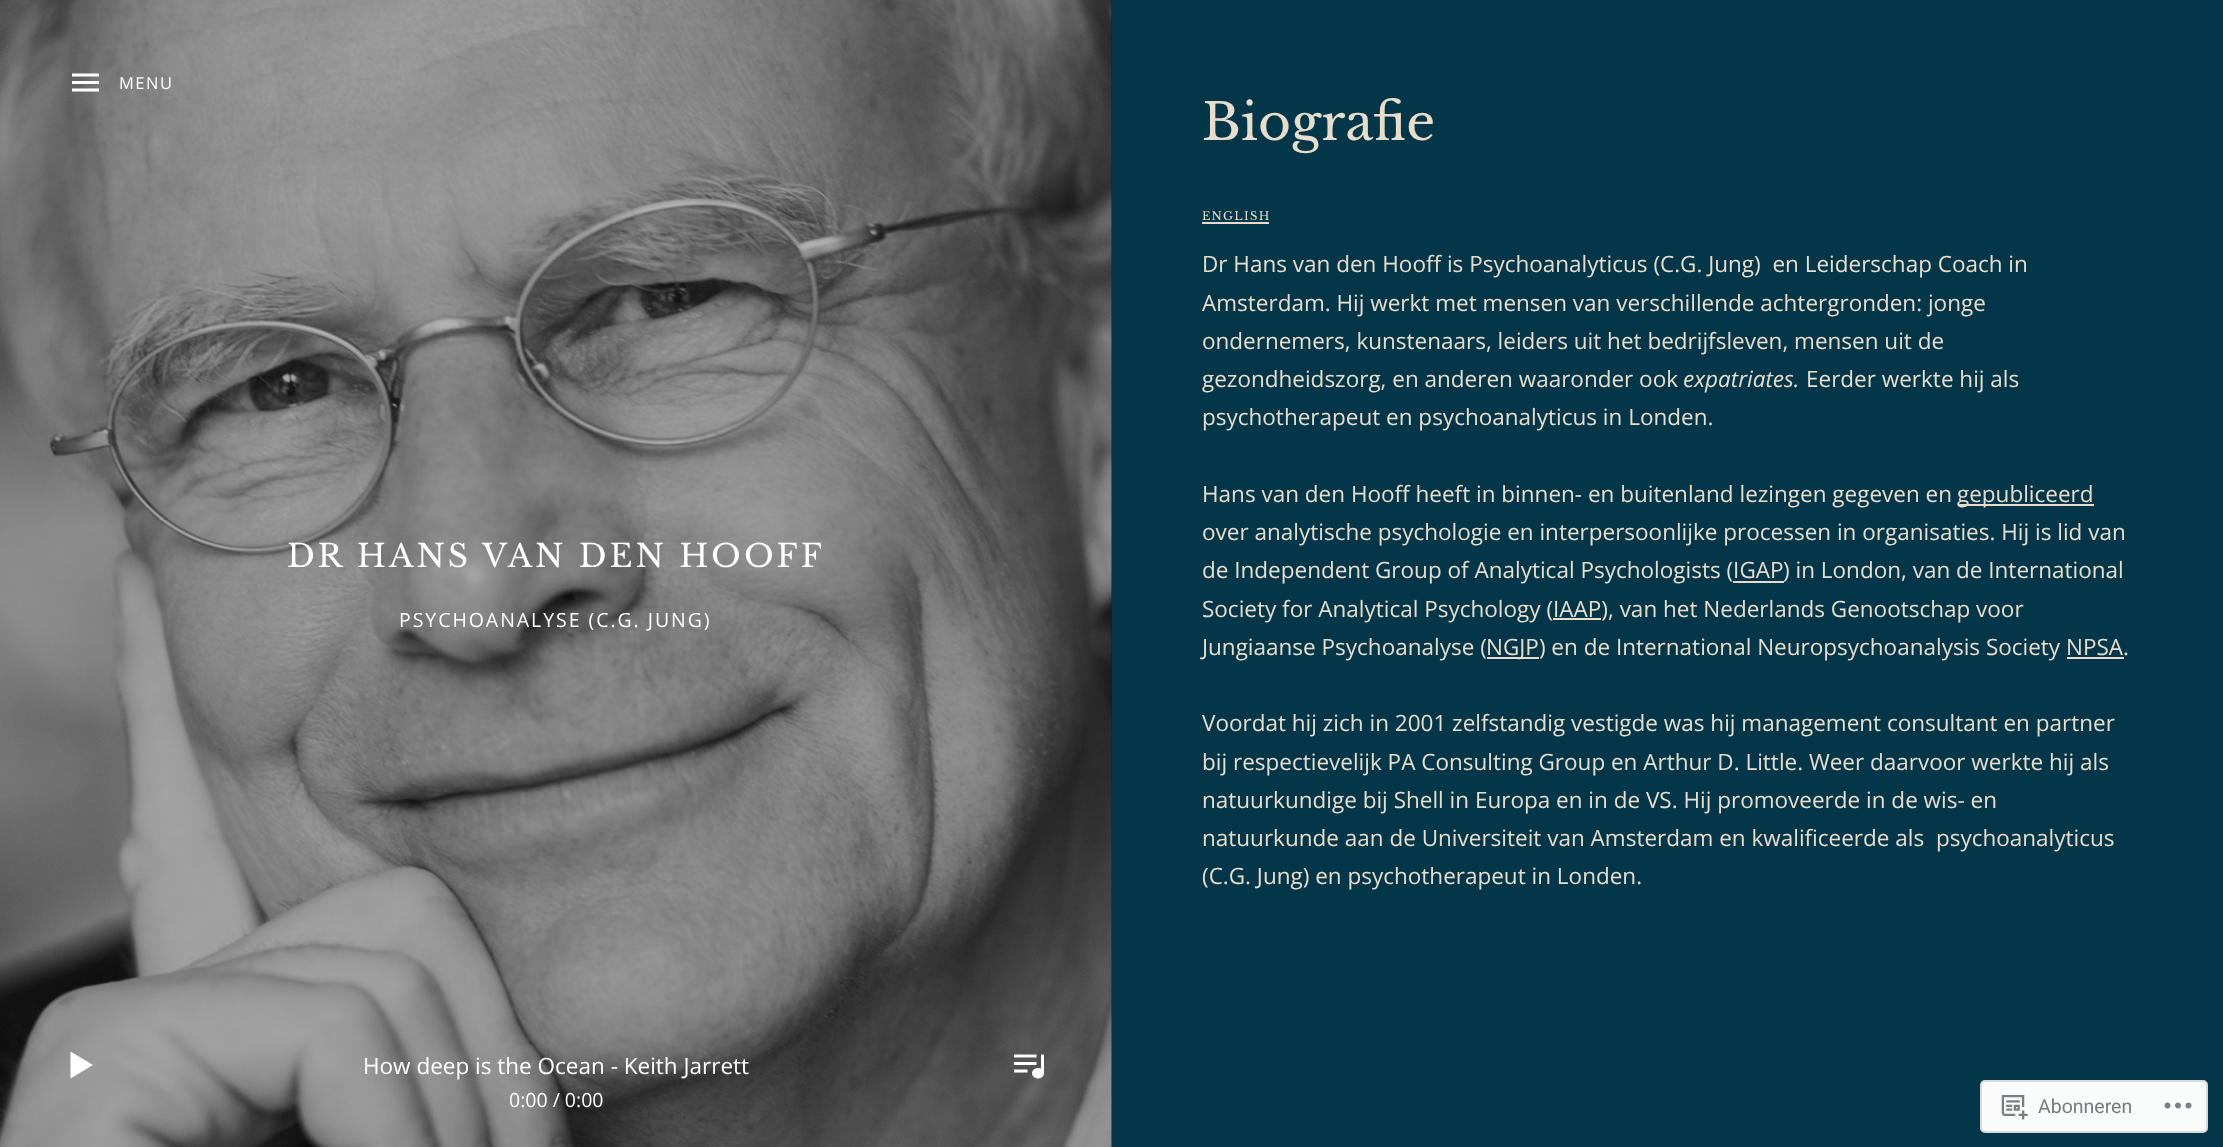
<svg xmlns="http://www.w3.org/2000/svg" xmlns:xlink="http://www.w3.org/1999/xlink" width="2223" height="1147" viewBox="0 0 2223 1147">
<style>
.cls-1{font:16.5px Open Sans;letter-spacing:1.5px;fill:#ffffff}
.cls-2{font:31.5px Libre Baskerville;letter-spacing:3.15px;fill:#ffffff}
.cls-3{font:19.5px Open Sans;letter-spacing:1.95px;fill:#ffffff}
.cls-4{font:50.5px Libre Baskerville;fill:#e8ddcb}
.cls-5{font:11.5px Libre Baskerville;letter-spacing:1.25px;fill:#e8ddcb}
.cls-6{font:22.5px Open Sans;fill:#e8ddcb}
.cls-7{font:italic 22.5px Open Sans;fill:#e8ddcb}
.cls-8{font:22.5px Open Sans;fill:#ffffff}
.cls-9{font:19.5px Open Sans;fill:#ffffff}
.cls-10{font:19.5px Roboto;fill:#767b81}
</style>
<rect width="100%" height="100%" fill="#033649"/>
<rect fill="#022633" x="1111" y="0" width="1" height="1147"/>
<image xlink:href="image0.png" x="0" y="0" width="1112" height="1147"/>
<image xlink:href="image1.png" x="72" y="73" width="27" height="19"/>
<rect fill="#e8ddcb" x="1202" y="222" width="67" height="2"/>
<rect fill="#e8ddcb" x="1958" y="504" width="136" height="2"/>
<rect fill="#e8ddcb" x="1733" y="581" width="51" height="2"/>
<rect fill="#e8ddcb" x="1553" y="618" width="48" height="2"/>
<rect fill="#e8ddcb" x="1487" y="657" width="52" height="2"/>
<rect fill="#e8ddcb" x="2067" y="657" width="57" height="2"/>
<path fill="#ffffff" d="M70.5 1051.5V1078.5L93 1065Z"/>
<image xlink:href="image2.png" x="1014" y="1054" width="30" height="25"/>
<rect fill="#fafbfb" stroke="#d8d9db" stroke-width="2" x="1981" y="1081" width="226" height="51" rx="4"/>
<image xlink:href="image3.png" x="2001" y="1095" width="27" height="25"/>
<image xlink:href="image4.png" x="2164" y="1102" width="28" height="7"/>
<text class="cls-1" x="119" y="89">MENU</text>
<text class="cls-2" x="287" y="567">DR HANS VAN DEN HOOFF</text>
<text class="cls-3" x="399" y="627">PSYCHOANALYSE (C.G. JUNG)</text>
<text class="cls-4" x="1202" y="140">Biografie</text>
<text class="cls-5" x="1202" y="220">ENGLISH</text>
<text class="cls-6" xml:space="preserve"><tspan x="1202" y="272">Dr Hans van den Hooff is Psychoanalyticus (C.G. Jung)  en Leiderschap Coach in</tspan><tspan x="1202" y="311">Amsterdam. Hij werkt met mensen van verschillende achtergronden: jonge</tspan><tspan x="1202" y="349">ondernemers, kunstenaars, leiders uit het bedrijfsleven, mensen uit de</tspan><tspan x="1202" y="387">gezondheidszorg, en anderen waaronder ook</tspan></text>
<text class="cls-7" x="1683" y="387">expatriates.</text>
<text class="cls-6" x="1806" y="387">Eerder werkte hij als</text>
<text class="cls-6" x="1202" y="425">psychotherapeut en psychoanalyticus in Londen.</text>
<text class="cls-6" x="1202" y="502">Hans van den Hooff heeft in binnen- en buitenland lezingen gegeven en</text>
<text class="cls-6" x="1957" y="502">gepubliceerd</text>
<text class="cls-6"><tspan x="1202" y="540">over analytische psychologie en interpersoonlijke processen in organisaties. Hij is lid van</tspan><tspan x="1202" y="578">de Independent Group of Analytical Psychologists (IGAP</tspan></text>
<text class="cls-6" x="1783" y="578">) in London, van de International</text>
<text class="cls-6"><tspan x="1202" y="617">Society for Analytical Psychology (IAAP), van het Nederlands Genootschap voor</tspan><tspan x="1202" y="655">Jungiaanse Psychoanalyse (</tspan></text>
<text class="cls-6" x="1486" y="655">NGJP) en de International Neuropsychoanalysis Society NPSA.</text>
<text class="cls-6" xml:space="preserve"><tspan x="1202" y="731">Voordat hij zich in 2001 zelfstandig vestigde was hij management consultant en partner</tspan><tspan x="1202" y="770">bij respectievelijk PA Consulting Group en Arthur D. Little. Weer daarvoor werkte hij als</tspan><tspan x="1202" y="808">natuurkundige bij Shell in Europa en in de VS. Hij promoveerde in de wis- en</tspan><tspan x="1202" y="846">natuurkunde aan de Universiteit van Amsterdam en kwalificeerde als  psychoanalyticus</tspan><tspan x="1202" y="884">(C.G. Jung) en psychotherapeut in Londen.</tspan></text>
<text class="cls-8" x="363" y="1074">How deep is the Ocean - Keith Jarrett</text>
<text class="cls-9" x="509" y="1107">0:00 / 0:00</text>
<text class="cls-10" x="2038" y="1113">Abonneren</text>
</svg>
